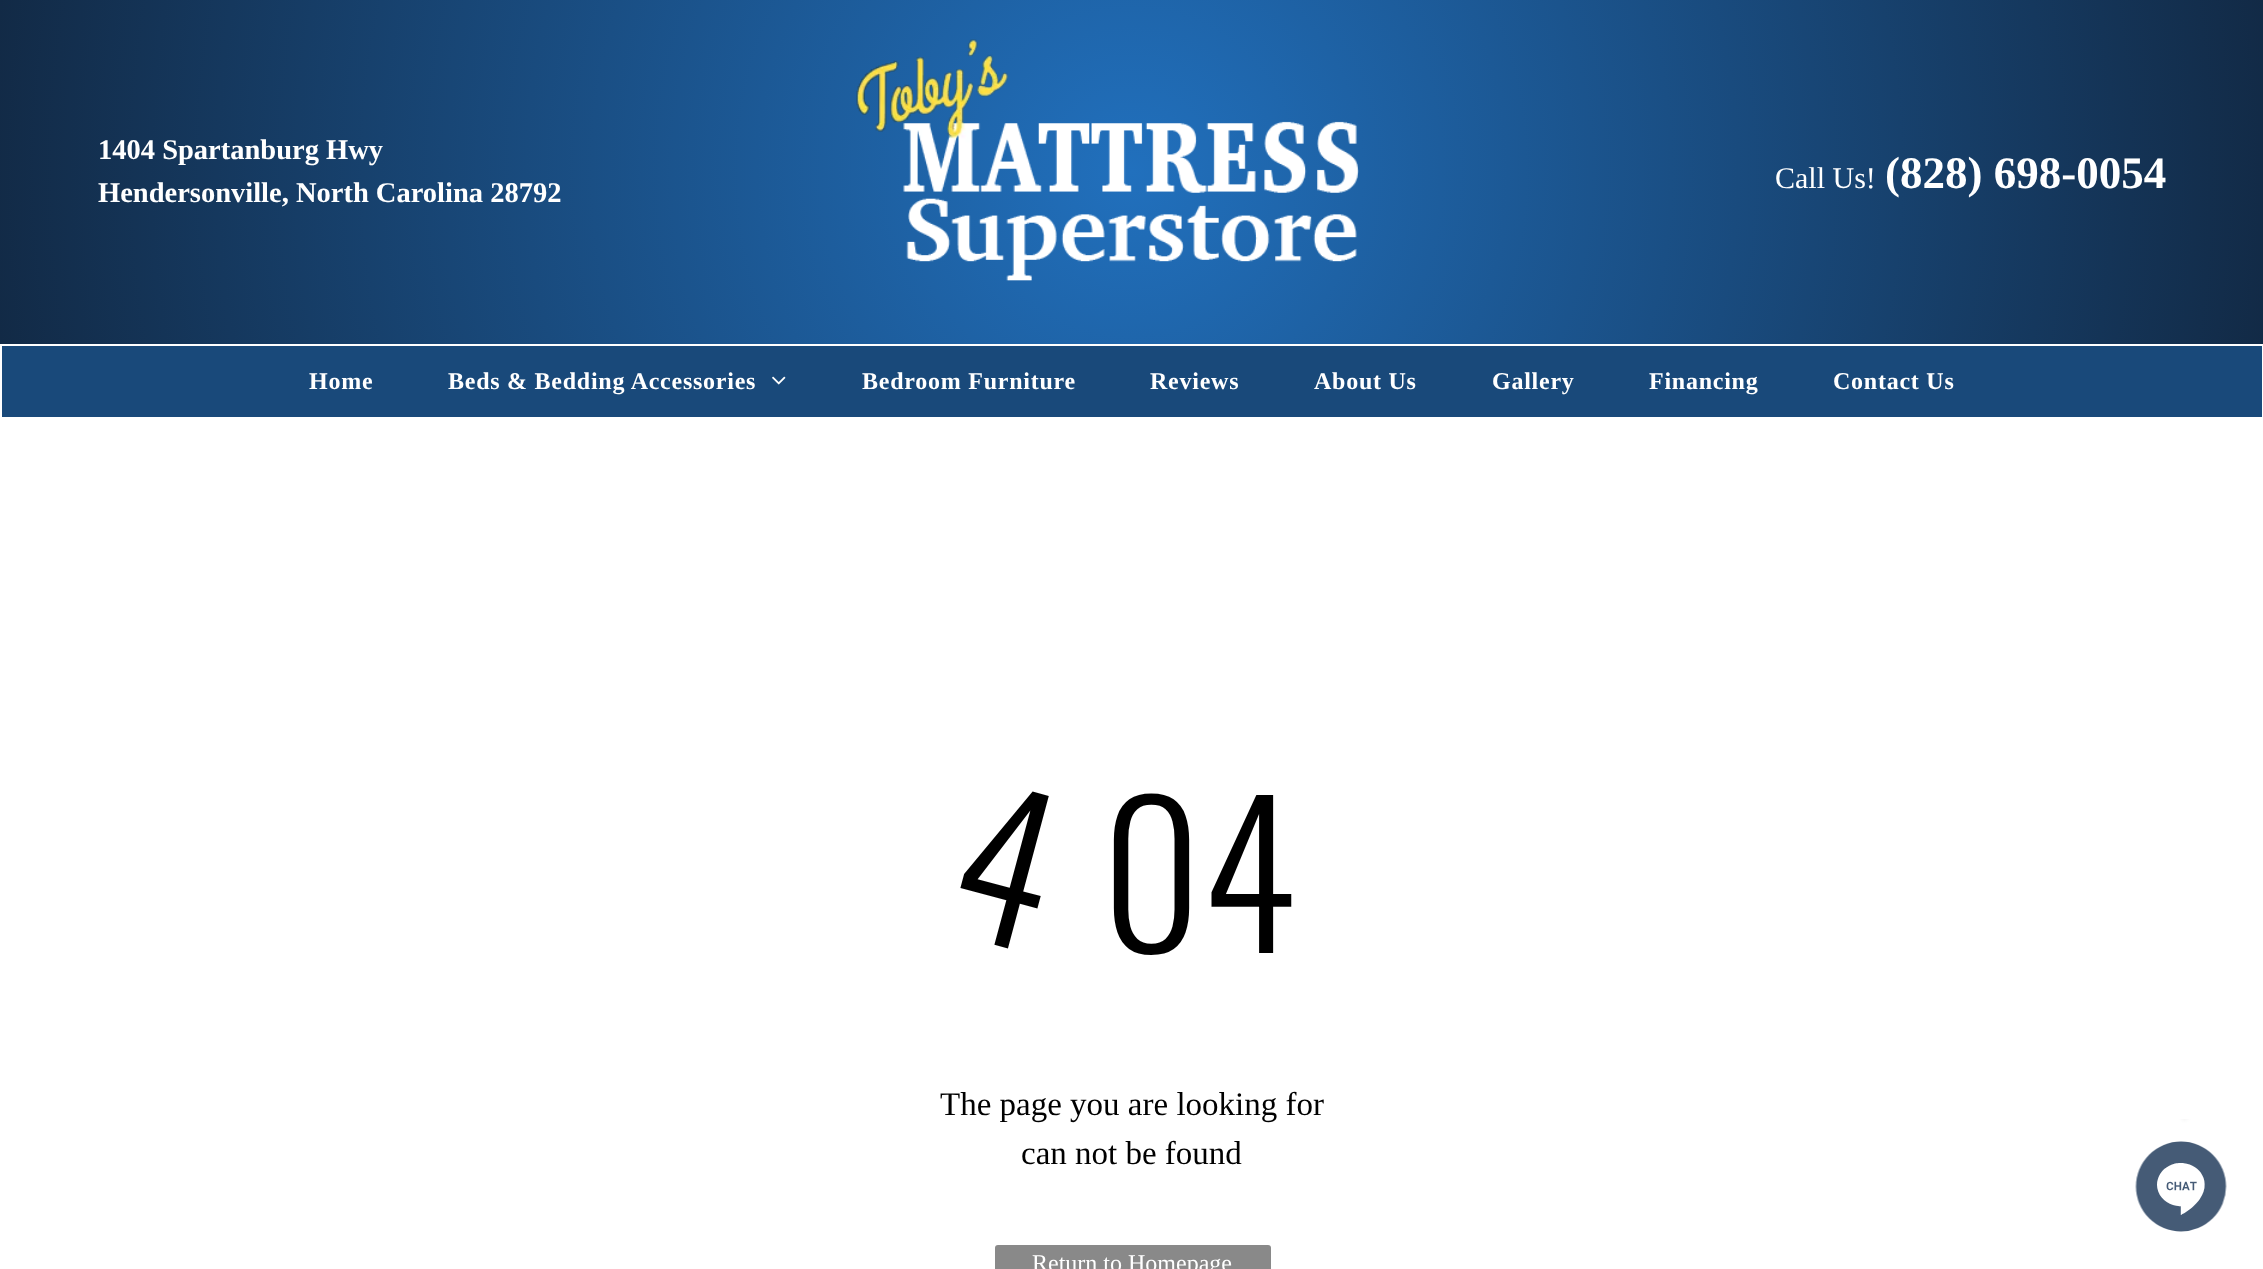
<svg xmlns="http://www.w3.org/2000/svg" xmlns:xlink="http://www.w3.org/1999/xlink" width="2263" height="1269" viewBox="0 0 2263 1269">
<style>
.cls-1{font:bold 28.5px Tinos;fill:#ffffff}
.cls-2{font:30px Tinos;fill:#ffffff}
.cls-3{font:bold 45px Tinos;fill:#ffffff}
.cls-4{font:bold 24px Tinos;letter-spacing:0.75px;fill:#ffffff}
.cls-5{font:300 195px Oswald;fill:#000000}
.cls-6{font:33px Tinos;fill:#000000}
.cls-7{font:24px Tinos;fill:#ffffff}
</style>
<defs>
<radialGradient id="g1" gradientUnits="userSpaceOnUse" cx="1132" cy="172" r="1145"><stop offset="0" stop-color="#2170bd"/><stop offset="1" stop-color="#122a46"/></radialGradient>
</defs>
<rect width="100%" height="100%" fill="#ffffff"/>
<rect fill="url(#g1)" x="0" y="0" width="2263" height="344"/>
<image xlink:href="image0.png" x="856" y="39" width="503" height="242"/>
<rect fill="#19497a" x="2" y="346" width="2260" height="71"/>
<image xlink:href="image1.png" x="772" y="376" width="14" height="9"/>
<rect fill="#898989" x="995" y="1245" width="276" height="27" rx="3"/>
<image xlink:href="image2.png" x="2135" y="1119" width="92" height="113"/>
<text class="cls-1"><tspan x="98" y="159">1404 Spartanburg Hwy</tspan><tspan x="98" y="202">Hendersonville, North Carolina 28792</tspan></text>
<text class="cls-2" x="1775" y="188">Call Us!</text>
<text class="cls-3" x="1885" y="188">(828) 698-0054</text>
<text class="cls-4" x="309" y="389">Home</text>
<text class="cls-4" x="448" y="389">Beds &amp; Bedding Accessories</text>
<text class="cls-4" x="862" y="389">Bedroom Furniture</text>
<text class="cls-4" x="1150" y="389">Reviews</text>
<text class="cls-4" x="1314" y="389">About Us</text>
<text class="cls-4" x="1492" y="389">Gallery</text>
<text class="cls-4" x="1649" y="389">Financing</text>
<text class="cls-4" x="1833" y="389">Contact Us</text>
<text class="cls-5" x="939" y="930" transform="rotate(15 939 930)">4</text>
<text class="cls-5" x="1101" y="953">04</text>
<text class="cls-6" x="940" y="1115">The page you are looking for</text>
<text class="cls-6" x="1021" y="1164">can not be found</text>
<text class="cls-7" x="1032" y="1271">Return to Homepage</text>
</svg>
